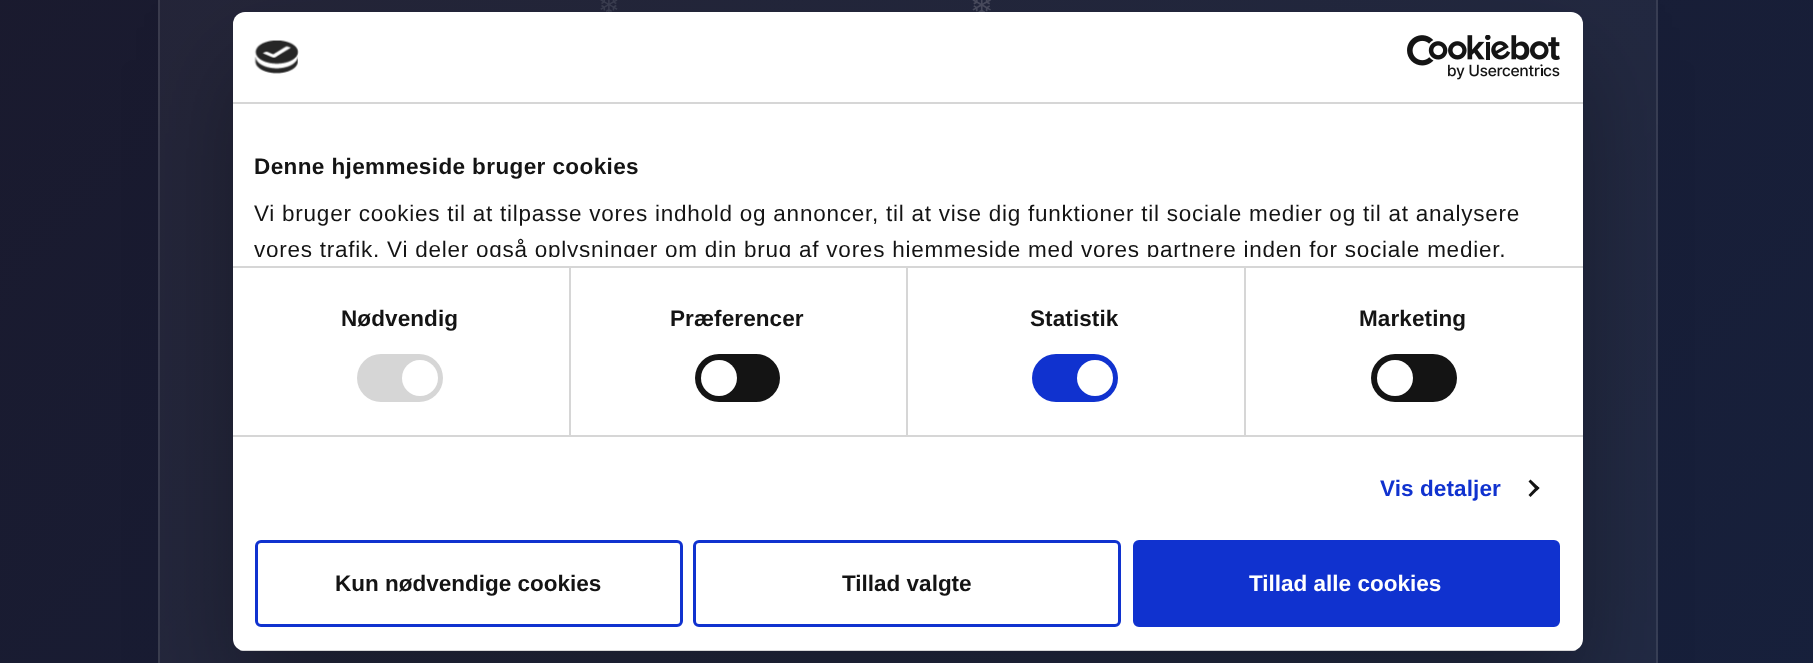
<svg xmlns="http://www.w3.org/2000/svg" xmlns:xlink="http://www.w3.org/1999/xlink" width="1813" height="663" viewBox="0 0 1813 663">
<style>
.cls-1{font:26px DejaVu Sans;fill:#393c4e}
.cls-2{font:28px DejaVu Sans;fill:#47495b}
.cls-3{font:bold 22.5px Liberation Sans;letter-spacing:0.4px;fill:#141414}
.cls-4{font:22.5px Liberation Sans;letter-spacing:0.75px;fill:#141414}
.cls-5{font:bold 22.5px Liberation Sans;letter-spacing:0.1px;fill:#141414}
.cls-6{font:bold 22.5px Liberation Sans;letter-spacing:0.1px;fill:#1032cf}
.cls-7{font:bold 22.5px Liberation Sans;fill:#141414}
.cls-8{font:bold 22.5px Liberation Sans;fill:#ffffff}
</style>
<defs>
<linearGradient id="g1" gradientUnits="userSpaceOnUse" x1="125" y1="-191" x2="1689" y2="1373"><stop offset="0" stop-color="#1a1a2e"/><stop offset="1" stop-color="#16213e"/></linearGradient>
<clipPath id="clip1"><rect x="240" y="113" width="1334" height="144"/></clipPath>
<clipPath id="clip2"><rect x="233" y="12" width="1350" height="639" rx="12"/></clipPath>
</defs>
<rect width="100%" height="100%" fill="#ffffff"/>
<rect fill="url(#g1)" x="0" y="0" width="1813" height="663"/>
<rect fill="#ffffff" fill-opacity="0.05" x="158" y="0" width="1500" height="663"/>
<rect fill="none" stroke="#ffffff" stroke-opacity="0.1" stroke-width="2" x="159" y="-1" width="1498" height="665"/>
<rect fill="#000000" fill-opacity="0.3" filter="blur(51px)" x="233" y="60" width="1350" height="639" rx="12"/>
<text class="cls-1" x="598" y="14">❄</text>
<text class="cls-2" x="970" y="15">❄</text>
<rect fill="#ffffff" x="233" y="12" width="1350" height="639" rx="12"/>
<rect fill="#d6d6d6" x="233" y="102" width="1350" height="2"/>
<image xlink:href="image0.png" x="254" y="40" width="45" height="34"/>
<image xlink:href="image1.png" x="1407" y="35" width="153" height="45"/>
<text class="cls-3" x="254" y="174">Denne hjemmeside bruger cookies</text>
<text class="cls-4" x="254" y="221">Vi bruger cookies til at tilpasse vores indhold og annoncer, til at vise dig funktioner til sociale medier og til at analysere</text>
<g clip-path="url(#clip1)">
<text class="cls-4" x="254" y="257">vores trafik. Vi deler også oplysninger om din brug af vores hjemmeside med vores partnere inden for sociale medier,</text>
</g>
<rect fill="#d6d6d6" x="233" y="435" width="1350" height="2"/>
<rect fill="#d6d6d6" x="569" y="267" width="2" height="168"/>
<text class="cls-5" x="341" y="326">Nødvendig</text>
<rect fill="#d6d6d6" x="357" y="354" width="86" height="48" rx="24"/>
<circle fill="#ffffff" cx="420" cy="378" r="18"/>
<rect fill="#d6d6d6" x="906" y="267" width="2" height="168"/>
<text class="cls-5" x="670" y="326">Præferencer</text>
<rect fill="#141414" x="695" y="354" width="85" height="48" rx="24"/>
<circle fill="#ffffff" cx="719" cy="378" r="18"/>
<rect fill="#d6d6d6" x="1244" y="267" width="2" height="168"/>
<rect fill="#d6d6d6" x="233" y="266" width="1350" height="2"/>
<text class="cls-5" x="1030" y="326">Statistik</text>
<rect fill="#1032cf" x="1032" y="354" width="86" height="48" rx="24"/>
<circle fill="#ffffff" cx="1095" cy="378" r="18"/>
<text class="cls-5" x="1359" y="326">Marketing</text>
<rect fill="#141414" x="1371" y="354" width="86" height="48" rx="24"/>
<circle fill="#ffffff" cx="1395" cy="378" r="18"/>
<text class="cls-6" x="1380" y="496">Vis detaljer</text>
<path fill="#141414" d="M1530.5 479.5L1539.5 488L1537 490.5L1528.5 481.5Z"/>
<path fill="#141414" d="M1537 486L1539.5 488L1530.5 497L1528.5 495Z"/>
<g clip-path="url(#clip2)">
<rect fill="#d6d6d6" x="233" y="650" width="1350" height="1"/>
</g>
<rect fill="none" stroke="#1032cf" stroke-width="3" x="256.5" y="541.5" width="425" height="84" rx="4.5"/>
<text class="cls-7" x="335" y="591">Kun nødvendige cookies</text>
<rect fill="none" stroke="#1032cf" stroke-width="3" x="694.5" y="541.5" width="425" height="84" rx="4.5"/>
<text class="cls-7" x="842" y="591">Tillad valgte</text>
<rect fill="#1032cf" stroke="#1032cf" stroke-width="3" x="1134.5" y="541.5" width="424" height="84" rx="4.5"/>
<text class="cls-8" x="1249" y="591">Tillad alle cookies</text>
</svg>
